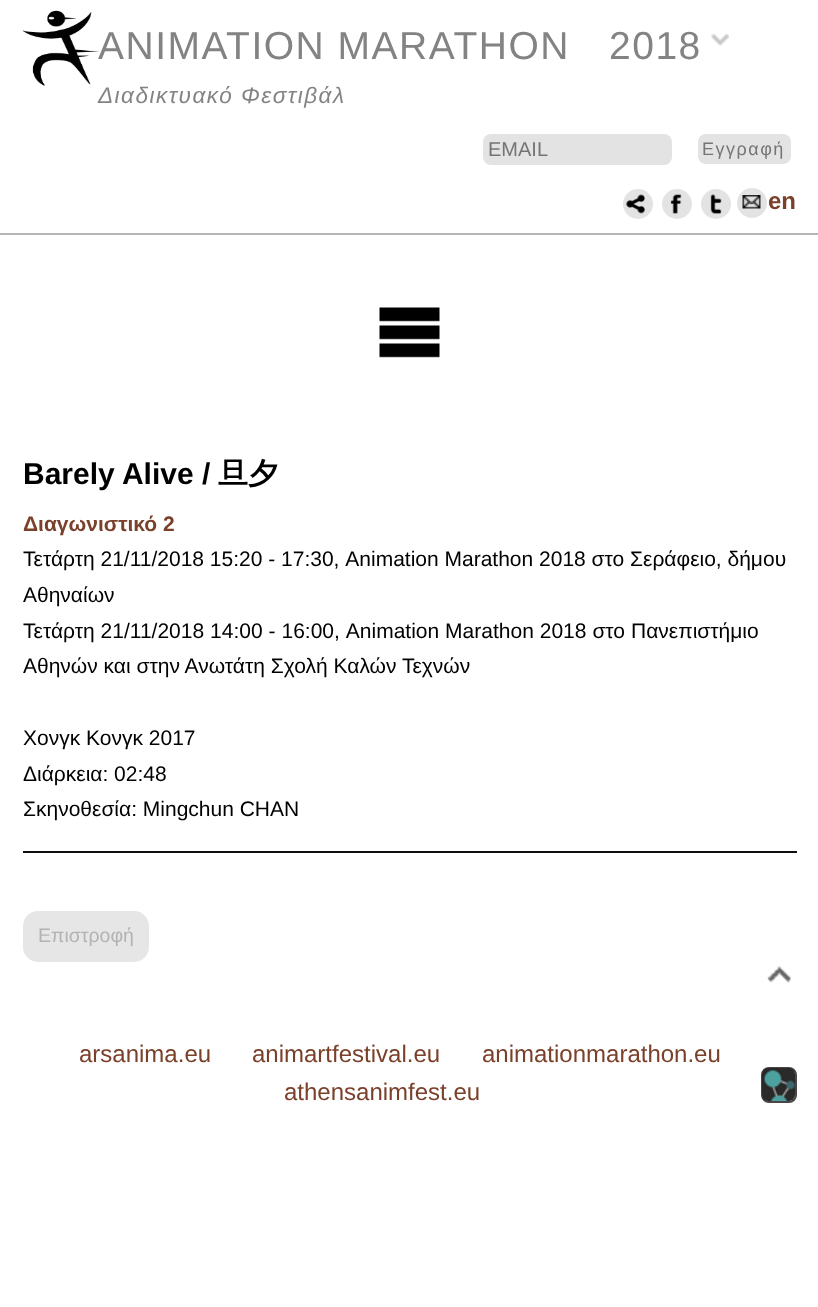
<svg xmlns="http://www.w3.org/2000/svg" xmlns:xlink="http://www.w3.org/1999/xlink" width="818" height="1307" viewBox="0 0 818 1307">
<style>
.cls-1{font:39px Liberation Sans;letter-spacing:1.5px;fill:#838383}
.cls-2{font:italic 22.5px Liberation Sans;letter-spacing:1.5px;fill:#838383}
.cls-3{font:20px Liberation Sans;fill:#757575}
.cls-4{font:18px Liberation Sans;letter-spacing:1.5px;fill:#757575}
.cls-5{font:bold 24px Liberation Sans;fill:#7a402a}
.cls-6{font:bold 30px Liberation Sans;fill:#000000}
.cls-7{font:bold 30px WenQuanYi Zen Hei;fill:#000000}
.cls-8{font:bold 21px Liberation Sans;fill:#7a402a}
.cls-9{font:21px Liberation Sans;fill:#000000}
.cls-10{font:19.5px Liberation Sans;fill:#b3b3b3}
.cls-11{font:24px Liberation Sans;fill:#7a402a}
</style>
<rect width="100%" height="100%" fill="#ffffff"/>
<image xlink:href="image0.png" x="22" y="10" width="77" height="76"/>
<image xlink:href="image1.png" x="711" y="33" width="18" height="13"/>
<rect fill="#e3e3e3" x="483" y="134" width="189" height="31" rx="8"/>
<rect fill="#e3e3e3" x="698" y="134" width="93" height="30" rx="8"/>
<circle fill="#e3e3e3" cx="638" cy="204" r="15"/>
<image xlink:href="image2.png" x="626" y="194" width="19" height="20"/>
<circle fill="#e3e3e3" cx="677" cy="204" r="15"/>
<image xlink:href="image3.png" x="670" y="194" width="12" height="20"/>
<circle fill="#e3e3e3" cx="716" cy="204" r="15"/>
<image xlink:href="image4.png" x="710" y="194" width="12" height="20"/>
<circle fill="#e3e3e3" cx="752" cy="203" r="15"/>
<image xlink:href="image5.png" x="742" y="195" width="19" height="14"/>
<rect fill="#b5b5b5" x="0" y="233" width="818" height="2"/>
<image xlink:href="image6.png" x="379" y="307" width="61" height="51"/>
<rect fill="#0e0e0e" x="23" y="851" width="774" height="2"/>
<rect fill="#e6e6e6" x="23" y="911" width="126" height="51" rx="15"/>
<image xlink:href="image7.png" x="767" y="965" width="24" height="18"/>
<rect fill="none" stroke="#4b4547" stroke-width="2" x="762" y="1068" width="34" height="34" rx="7"/>
<image xlink:href="image8.png" x="762" y="1068" width="33" height="33"/>
<text class="cls-1" x="98" y="59">ANIMATION MARATHON</text>
<text class="cls-1" x="609" y="59">2018</text>
<text class="cls-2" x="98" y="103">Διαδικτυακό Φεστιβάλ</text>
<text class="cls-3" x="488" y="156">EMAIL</text>
<text class="cls-4" x="702" y="155">Εγγραφή</text>
<text class="cls-5" x="768" y="209">en</text>
<text class="cls-6" x="23" y="484">Barely Alive /</text>
<text class="cls-7" x="218" y="484">旦夕</text>
<text class="cls-8" x="23" y="531">Διαγωνιστικό 2</text>
<text class="cls-9"><tspan x="23" y="566">Τετάρτη 21/11/2018 15:20 - 17:30, Animation Marathon 2018 στο Σεράφειο, δήμου</tspan><tspan x="23" y="602">Αθηναίων</tspan><tspan x="23" y="638" word-spacing="0.1">Τετάρτη 21/11/2018 14:00 - 16:00, Animation Marathon 2018 στο Πανεπιστήμιο</tspan><tspan x="23" y="673">Αθηνών και στην Ανωτάτη Σχολή Καλών Τεχνών</tspan></text>
<text class="cls-9"><tspan x="23" y="745">Χονγκ Κονγκ 2017</tspan><tspan x="23" y="781">Διάρκεια: 02:48</tspan><tspan x="23" y="816">Σκηνοθεσία: Mingchun CHAN</tspan></text>
<text class="cls-10" x="38" y="942">Επιστροφή</text>
<text class="cls-11" x="79" y="1062">arsanima.eu</text>
<text class="cls-11" x="252" y="1062">animartfestival.eu</text>
<text class="cls-11" x="482" y="1062">animationmarathon.eu</text>
<text class="cls-11" x="284" y="1100">athensanimfest.eu</text>
</svg>
